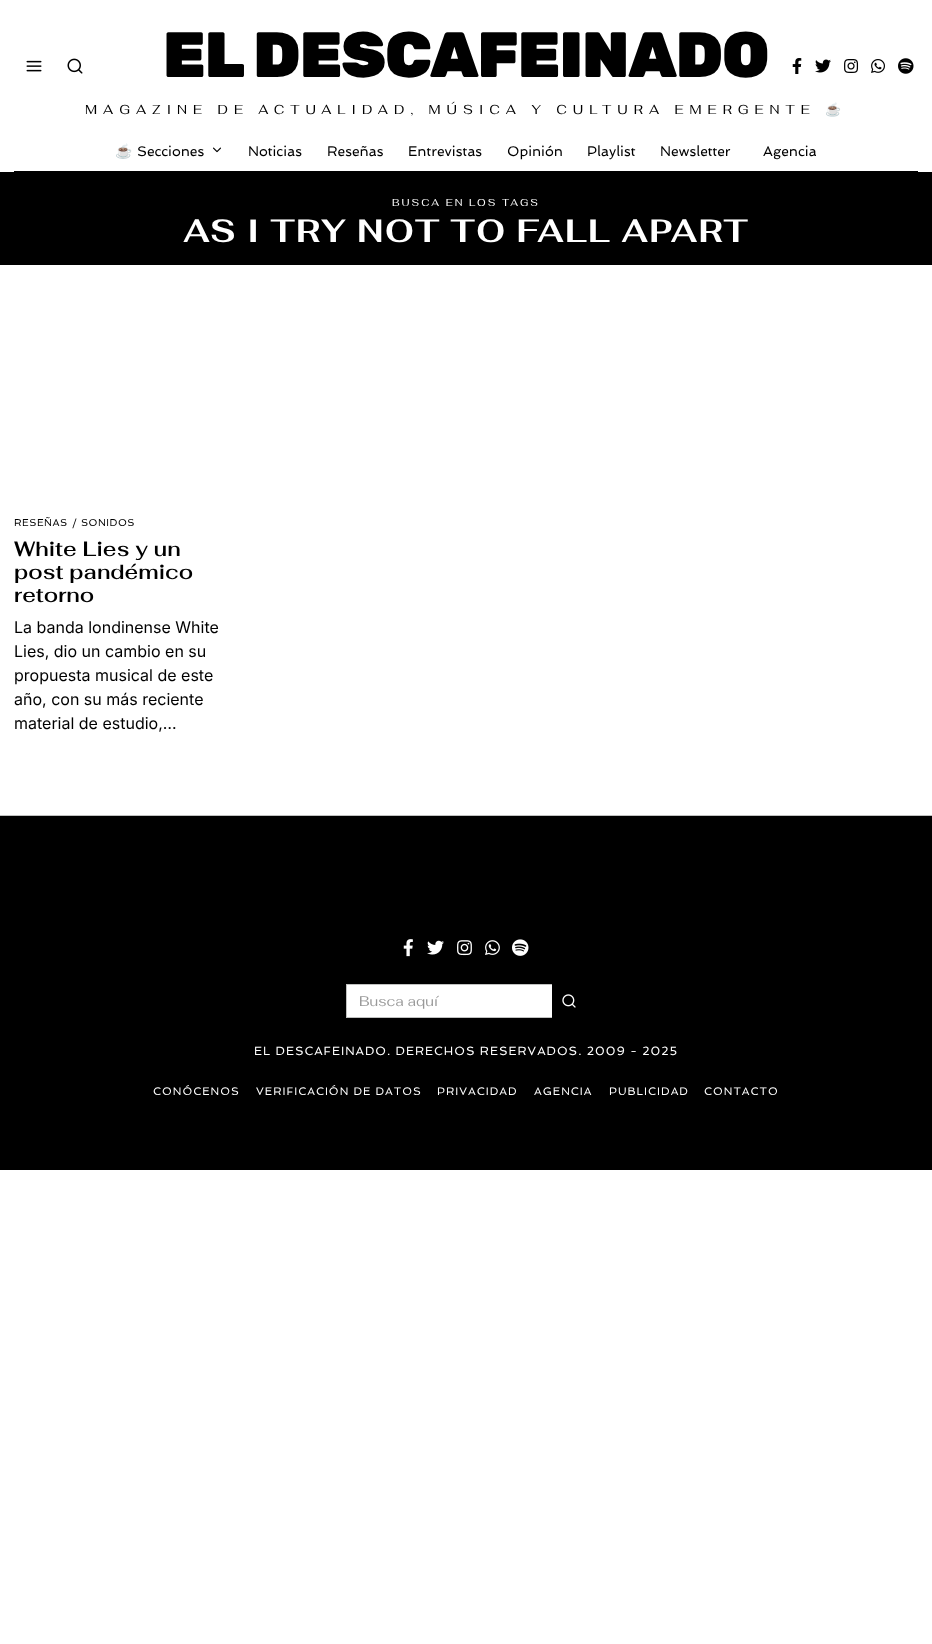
<svg xmlns="http://www.w3.org/2000/svg" xmlns:xlink="http://www.w3.org/1999/xlink" width="932" height="1644" viewBox="0 0 932 1644">
<style>
.cls-1{font:300 64px Rubik;letter-spacing:-1px;fill:#000000}
.cls-2{font:13px Fahkwang;letter-spacing:6px;fill:#000000}
.cls-3{font:13px Noto Color Emoji;letter-spacing:6px;fill:#000000}
.cls-4{font:14px Noto Color Emoji;fill:#000000}
.cls-5{font:14px Spinnaker;fill:#000000}
.cls-6{font:10px Fahkwang;letter-spacing:2px;fill:#ffffff}
.cls-7{font:bold 32px Fahkwang;letter-spacing:1px;fill:#ffffff}
.cls-8{font:10px Spinnaker;letter-spacing:0.5px;fill:#000000}
.cls-9{font:600 20.75px Fahkwang;fill:#000000}
.cls-10{font:16px Inter;fill:#000000}
.cls-11{font:14px Fahkwang;fill:#999999}
.cls-12{font:12px Spinnaker;letter-spacing:1px;fill:#ffffff}
.cls-13{font:11px Spinnaker;letter-spacing:1px;fill:#ffffff}
</style>
<rect width="100%" height="100%" fill="#ffffff"/>
<image xlink:href="image0.png" x="26" y="60" width="16" height="12"/>
<image xlink:href="image1.png" x="67" y="58" width="16" height="16"/>
<image xlink:href="image2.png" x="792" y="58" width="10" height="16"/>
<image xlink:href="image3.png" x="815" y="59" width="16" height="14"/>
<image xlink:href="image4.png" x="844" y="59" width="15" height="14"/>
<image xlink:href="image5.png" x="871" y="59" width="14" height="14"/>
<image xlink:href="image6.png" x="898" y="58" width="16" height="16"/>
<rect fill="#000000" x="14" y="171" width="904" height="1"/>
<image xlink:href="image7.png" x="213" y="147" width="8" height="6"/>
<rect fill="#000000" x="0" y="172" width="932" height="93"/>
<rect fill="#000000" x="0" y="816" width="932" height="354"/>
<rect fill="#c0c1c0" x="0" y="815" width="932" height="1"/>
<image xlink:href="image8.png" x="403" y="939" width="10" height="18"/>
<image xlink:href="image9.png" x="427" y="940" width="17" height="15"/>
<image xlink:href="image10.png" x="457" y="940" width="15" height="16"/>
<image xlink:href="image11.png" x="485" y="940" width="15" height="15"/>
<image xlink:href="image12.png" x="512" y="939" width="17" height="17"/>
<rect fill="#ffffff" x="347" y="985" width="205" height="32"/>
<rect fill="none" stroke="#c0c1c0" x="346.5" y="984.5" width="239" height="33"/>
<rect fill="#000000" x="552" y="984" width="34" height="34"/>
<image xlink:href="image13.png" x="562" y="994" width="14" height="14"/>
<text class="cls-1" x="163" y="77">EL DESCAFEINADO</text>
<text class="cls-2" x="85" y="114">MAGAZINE DE ACTUALIDAD, MÚSICA Y CULTURA EMERGENTE</text>
<text class="cls-3" x="825" y="114">☕</text>
<text class="cls-4" x="115" y="156">☕️</text>
<text class="cls-5" x="137" y="156">Secciones</text>
<text class="cls-5" x="248" y="156">Noticias</text>
<text class="cls-5" x="327" y="156">Reseñas</text>
<text class="cls-5" x="408" y="156">Entrevistas</text>
<text class="cls-5" x="507" y="156">Opinión</text>
<text class="cls-5" x="587" y="156">Playlist</text>
<text class="cls-5" x="660" y="156">Newsletter</text>
<text class="cls-5" x="763" y="156">Agencia</text>
<text class="cls-6" x="392" y="206">BUSCA EN LOS TAGS</text>
<text class="cls-7" x="183" y="242">AS I TRY NOT TO FALL APART</text>
<text class="cls-8" x="14" y="526">RESEÑAS</text>
<text class="cls-8" x="72" y="526">/</text>
<text class="cls-8" x="81" y="526">SONIDOS</text>
<text class="cls-9"><tspan x="14" y="556">White Lies y un</tspan><tspan x="14" y="579">post pandémico</tspan><tspan x="14" y="602">retorno</tspan></text>
<text class="cls-10"><tspan x="14" y="633">La banda londinense White</tspan><tspan x="14" y="657">Lies, dio un cambio en su</tspan><tspan x="14" y="681">propuesta musical de este</tspan><tspan x="14" y="705">año, con su más reciente</tspan><tspan x="14" y="729">material de estudio,…</tspan></text>
<text class="cls-11" x="359" y="1006">Busca aquí</text>
<text class="cls-12" x="254" y="1055">EL DESCAFEINADO. DERECHOS RESERVADOS. 2009 - 2025</text>
<text class="cls-13" x="153" y="1095">CONÓCENOS</text>
<text class="cls-13" x="256" y="1095">VERIFICACIÓN DE DATOS</text>
<text class="cls-13" x="437" y="1095">PRIVACIDAD</text>
<text class="cls-13" x="534" y="1095">AGENCIA</text>
<text class="cls-13" x="609" y="1095">PUBLICIDAD</text>
<text class="cls-13" x="704" y="1095">CONTACTO</text>
</svg>
